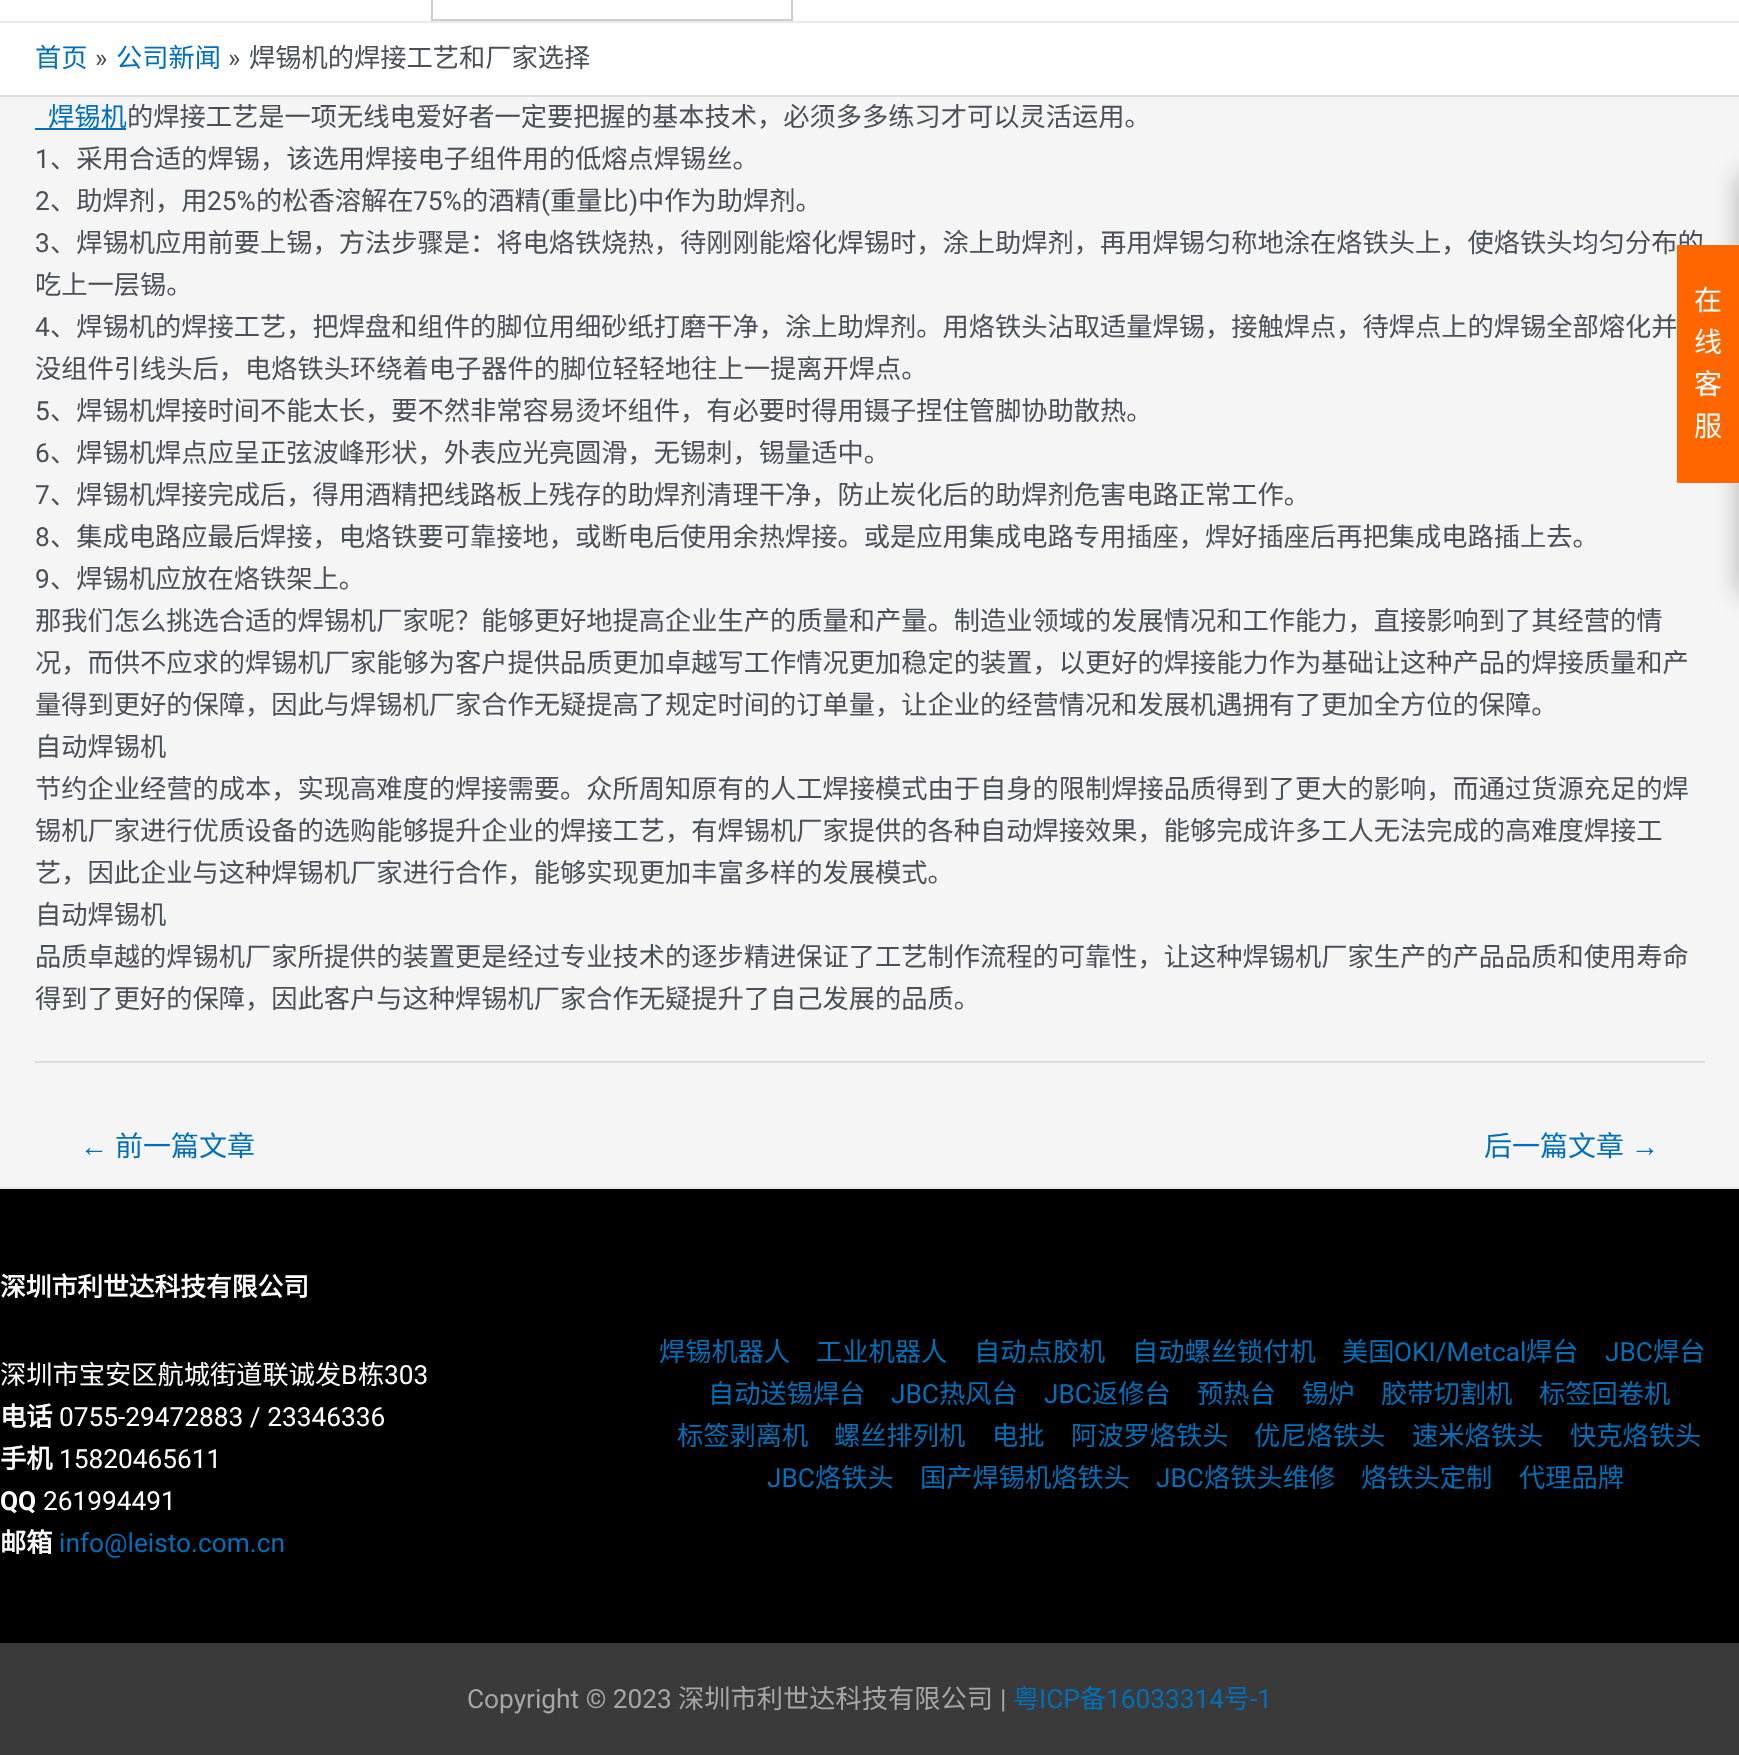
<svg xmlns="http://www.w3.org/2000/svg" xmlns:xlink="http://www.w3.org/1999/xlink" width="1739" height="1755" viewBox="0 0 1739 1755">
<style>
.cls-1{font:26.25px Noto Sans CJK SC;fill:#0170b9}
.cls-2{font:26.25px Roboto;fill:#4b4f58}
.cls-3{font:26.25px Noto Sans CJK SC;fill:#4b4f58}
.cls-4{font:28px Liberation Sans;fill:#0170b9}
.cls-5{font:28px Noto Sans CJK SC;fill:#0170b9}
.cls-6{font:28px Noto Sans CJK SC;fill:#ffffff}
.cls-7{font:bold 25.75px Noto Sans CJK SC;fill:#ffffff}
.cls-8{font:26.25px Noto Sans CJK SC;fill:#ffffff}
.cls-9{font:26.25px Roboto;fill:#ffffff}
.cls-10{font:bold 26.25px Noto Sans CJK SC;fill:#ffffff}
.cls-11{font:bold 26.25px Roboto;fill:#ffffff}
.cls-12{font:26.25px Roboto;fill:#0170b9}
.cls-13{font:26.25px Roboto;fill:#a6a6a6}
.cls-14{font:26.25px Noto Sans CJK SC;fill:#a6a6a6}
</style>
<rect width="100%" height="100%" fill="#f5f5f5"/>
<rect fill="#ffffff" x="0" y="0" width="1739" height="21"/>
<rect fill="#eaeaea" x="0" y="21" width="1739" height="2"/>
<rect fill="none" stroke="#cccccc" stroke-width="2" x="432" y="-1" width="360" height="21"/>
<rect fill="#ffffff" x="0" y="23" width="1739" height="72"/>
<rect fill="#dddddd" x="0" y="95" width="1739" height="2"/>
<rect fill="#0170b9" x="35" y="128" width="91" height="2"/>
<rect fill="#dddddd" x="35" y="1061" width="1670" height="2"/>
<rect fill="#000000" fill-opacity="0.3" filter="blur(13px)" x="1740" y="175" width="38" height="418"/>
<rect fill="#000000" x="0" y="1189" width="1739" height="454"/>
<rect fill="#e6e6e6" x="0" y="1187" width="1739" height="2"/>
<rect fill="#3a3a3a" x="0" y="1643" width="1739" height="112"/>
<text class="cls-1" x="35" y="67">首页</text>
<text class="cls-2" x="95" y="67">»</text>
<text class="cls-1" x="116" y="67">公司新闻</text>
<text class="cls-2" x="228" y="67">»</text>
<text class="cls-3" x="249" y="67">焊锡机的焊接工艺和厂家选择</text>
<text class="cls-1" x="48" y="126">焊锡机</text>
<text class="cls-3" x="127" y="126">的焊接工艺是一项无线电爱好者一定要把握的基本技术，必须多多练习才可以灵活运用。</text>
<text class="cls-2" x="35" y="168">1</text>
<text class="cls-3" x="50" y="168">、采用合适的焊锡，该选用焊接电子组件用的低熔点焊锡丝。</text>
<text class="cls-2" x="35" y="210">2</text>
<text class="cls-3" x="50" y="210">、助焊剂，用</text>
<text class="cls-2" x="207" y="210">25%</text>
<text class="cls-3" x="256" y="210">的松香溶解在</text>
<text class="cls-2" x="413" y="210">75%</text>
<text class="cls-3" x="462" y="210">的酒精</text>
<text class="cls-2" x="541" y="210">(</text>
<text class="cls-3" x="550" y="210">重量比</text>
<text class="cls-2" x="629" y="210">)</text>
<text class="cls-3" x="638" y="210">中作为助焊剂。</text>
<text class="cls-2" x="35" y="252">3</text>
<text class="cls-3" x="50" y="252">、焊锡机应用前要上锡，方法步骤是：将电烙铁烧热，待刚刚能熔化焊锡时，涂上助焊剂，再用焊锡匀称地涂在烙铁头上，使烙铁头均匀分布的</text>
<text class="cls-3" x="35" y="294">吃上一层锡。</text>
<text class="cls-2" x="35" y="336">4</text>
<text class="cls-3" x="50" y="336">、焊锡机的焊接工艺，把焊盘和组件的脚位用细砂纸打磨干净，涂上助焊剂。用烙铁头沾取适量焊锡，接触焊点，待焊点上的焊锡全部熔化并</text>
<text class="cls-3" x="35" y="378">没组件引线头后，电烙铁头环绕着电子器件的脚位轻轻地往上一提离开焊点。</text>
<text class="cls-2" x="35" y="420">5</text>
<text class="cls-3" x="50" y="420">、焊锡机焊接时间不能太长，要不然非常容易烫坏组件，有必要时得用镊子捏住管脚协助散热。</text>
<text class="cls-2" x="35" y="462">6</text>
<text class="cls-3" x="50" y="462">、焊锡机焊点应呈正弦波峰形状，外表应光亮圆滑，无锡刺，锡量适中。</text>
<text class="cls-2" x="35" y="504">7</text>
<text class="cls-3" x="50" y="504">、焊锡机焊接完成后，得用酒精把线路板上残存的助焊剂清理干净，防止炭化后的助焊剂危害电路正常工作。</text>
<text class="cls-2" x="35" y="546">8</text>
<text class="cls-3" x="50" y="546">、集成电路应最后焊接，电烙铁要可靠接地，或断电后使用余热焊接。或是应用集成电路专用插座，焊好插座后再把集成电路插上去。</text>
<text class="cls-2" x="35" y="588">9</text>
<text class="cls-3" x="50" y="588">、焊锡机应放在烙铁架上。</text>
<text class="cls-3"><tspan x="35" y="630">那我们怎么挑选合适的焊锡机厂家呢？能够更好地提高企业生产的质量和产量。制造业领域的发展情况和工作能力，直接影响到了其经营的情</tspan><tspan x="35" y="672">况，而供不应求的焊锡机厂家能够为客户提供品质更加卓越写工作情况更加稳定的装置，以更好的焊接能力作为基础让这种产品的焊接质量和产</tspan><tspan x="35" y="714">量得到更好的保障，因此与焊锡机厂家合作无疑提高了规定时间的订单量，让企业的经营情况和发展机遇拥有了更加全方位的保障。</tspan><tspan x="35" y="756">自动焊锡机</tspan><tspan x="35" y="798">节约企业经营的成本，实现高难度的焊接需要。众所周知原有的人工焊接模式由于自身的限制焊接品质得到了更大的影响，而通过货源充足的焊</tspan><tspan x="35" y="840">锡机厂家进行优质设备的选购能够提升企业的焊接工艺，有焊锡机厂家提供的各种自动焊接效果，能够完成许多工人无法完成的高难度焊接工</tspan><tspan x="35" y="882">艺，因此企业与这种焊锡机厂家进行合作，能够实现更加丰富多样的发展模式。</tspan><tspan x="35" y="924">自动焊锡机</tspan><tspan x="35" y="966">品质卓越的焊锡机厂家所提供的装置更是经过专业技术的逐步精进保证了工艺制作流程的可靠性，让这种焊锡机厂家生产的产品品质和使用寿命</tspan><tspan x="35" y="1008">得到了更好的保障，因此客户与这种焊锡机厂家合作无疑提升了自己发展的品质。</tspan></text>
<text class="cls-4" x="80" y="1156">←</text>
<text class="cls-5" x="115" y="1156">前一篇文章</text>
<text class="cls-5" x="1484" y="1156">后一篇文章</text>
<text class="cls-4" x="1631" y="1156">→</text>
<rect fill="#ff6600" x="1677" y="245" width="62" height="238"/>
<text class="cls-6"><tspan x="1694" y="310">在</tspan><tspan x="1694" y="352">线</tspan><tspan x="1694" y="394">客</tspan><tspan x="1694" y="436">服</tspan></text>
<text class="cls-7" x="0" y="1296">深圳市利世达科技有限公司</text>
<text class="cls-8" x="0" y="1384">深圳市宝安区航城街道联诚发</text>
<text class="cls-9" x="341" y="1384">B</text>
<text class="cls-8" x="358" y="1384">栋</text>
<text class="cls-9" x="384" y="1384">303</text>
<text class="cls-10" x="0" y="1426">电话</text>
<text class="cls-9" x="59" y="1426">0755-29472883 / 23346336</text>
<text class="cls-10" x="0" y="1468">手机</text>
<text class="cls-9" x="59" y="1468">15820465611</text>
<text class="cls-11" x="0" y="1510">QQ</text>
<text class="cls-9" x="43" y="1510">261994491</text>
<text class="cls-10" x="0" y="1552">邮箱</text>
<text class="cls-12" x="59" y="1552">info@leisto.com.cn</text>
<text class="cls-1" x="659" y="1361">焊锡机器人</text>
<text class="cls-1" x="816" y="1361">工业机器人</text>
<text class="cls-1" x="974" y="1361">自动点胶机</text>
<text class="cls-1" x="1132" y="1361">自动螺丝锁付机</text>
<text class="cls-1" x="1342" y="1361">美国</text>
<text class="cls-12" x="1394" y="1361">OKI/Metcal</text>
<text class="cls-1" x="1526" y="1361">焊台</text>
<text class="cls-12" x="1605" y="1361">JBC</text>
<text class="cls-1" x="1653" y="1361">焊台</text>
<text class="cls-1" x="708" y="1403">自动送锡焊台</text>
<text class="cls-12" x="891" y="1403">JBC</text>
<text class="cls-1" x="939" y="1403">热风台</text>
<text class="cls-12" x="1044" y="1403">JBC</text>
<text class="cls-1" x="1092" y="1403">返修台</text>
<text class="cls-1" x="1197" y="1403">预热台</text>
<text class="cls-1" x="1302" y="1403">锡炉</text>
<text class="cls-1" x="1381" y="1403">胶带切割机</text>
<text class="cls-1" x="1539" y="1403">标签回卷机</text>
<text class="cls-1" x="677" y="1445">标签剥离机</text>
<text class="cls-1" x="834" y="1445">螺丝排列机</text>
<text class="cls-1" x="992" y="1445">电批</text>
<text class="cls-1" x="1071" y="1445">阿波罗烙铁头</text>
<text class="cls-1" x="1254" y="1445">优尼烙铁头</text>
<text class="cls-1" x="1412" y="1445">速米烙铁头</text>
<text class="cls-1" x="1570" y="1445">快克烙铁头</text>
<text class="cls-12" x="767" y="1487">JBC</text>
<text class="cls-1" x="815" y="1487">烙铁头</text>
<text class="cls-1" x="920" y="1487">国产焊锡机烙铁头</text>
<text class="cls-12" x="1156" y="1487">JBC</text>
<text class="cls-1" x="1204" y="1487">烙铁头维修</text>
<text class="cls-1" x="1361" y="1487">烙铁头定制</text>
<text class="cls-1" x="1519" y="1487">代理品牌</text>
<text class="cls-13" x="467" y="1708">Copyright © 2023</text>
<text class="cls-14" x="678" y="1708">深圳市利世达科技有限公司</text>
<text class="cls-13" x="1000" y="1708">|</text>
<text class="cls-1" x="1013" y="1708">粤</text>
<text class="cls-12" x="1039" y="1708">ICP</text>
<text class="cls-1" x="1080" y="1708">备</text>
<text class="cls-12" x="1106" y="1708">16033314</text>
<text class="cls-1" x="1224" y="1708">号</text>
<text class="cls-12" x="1250" y="1708">-1</text>
</svg>
